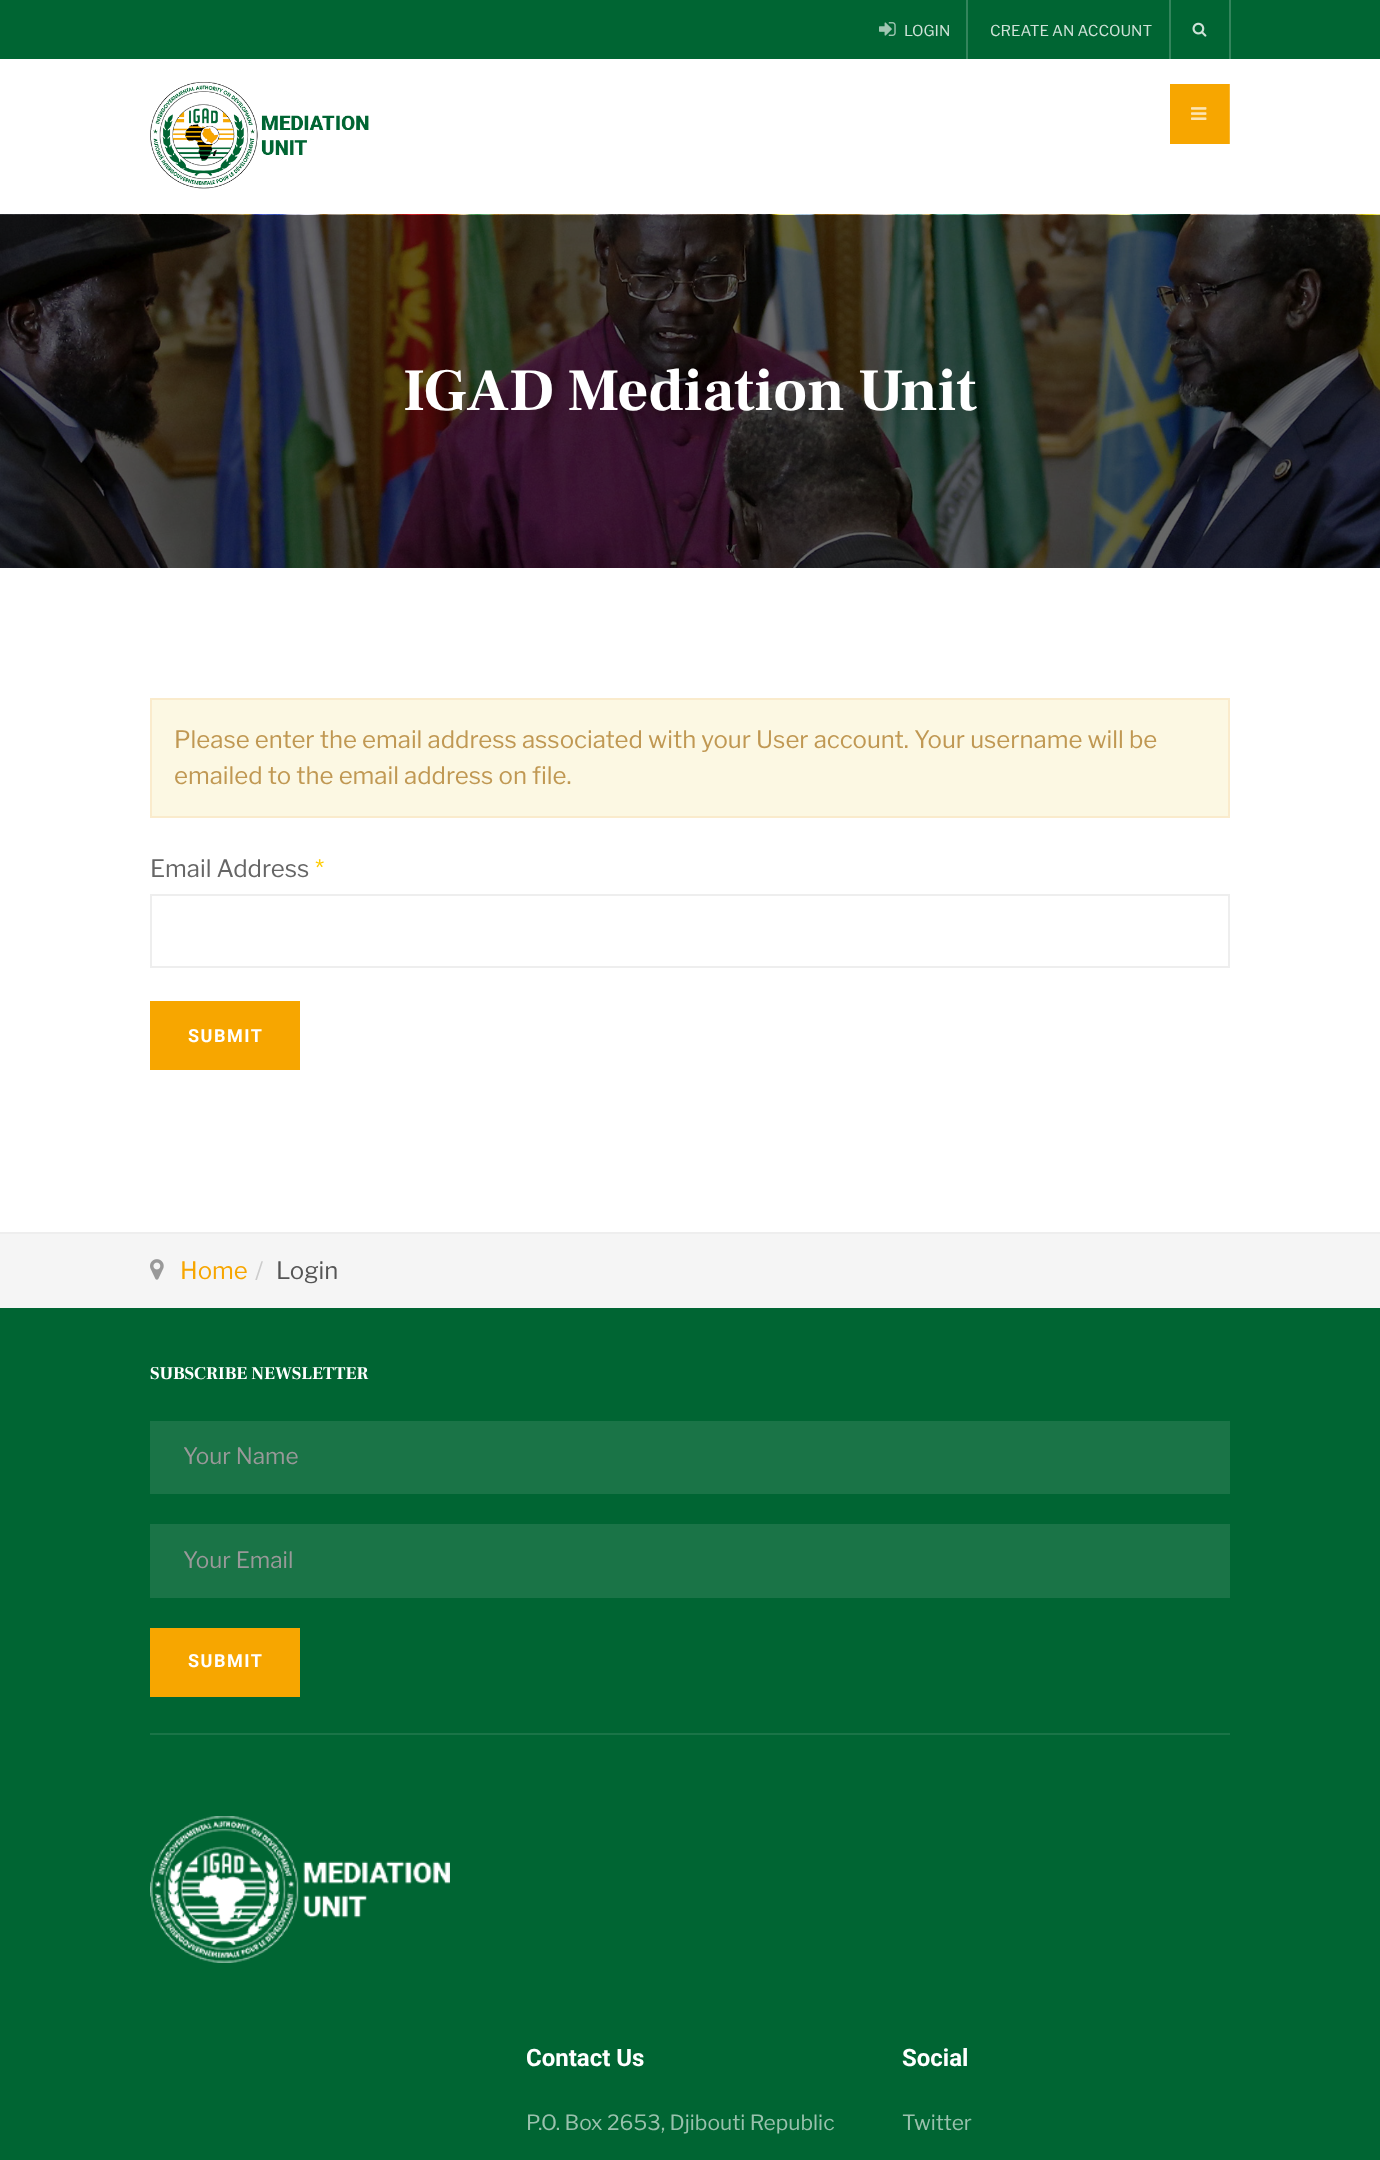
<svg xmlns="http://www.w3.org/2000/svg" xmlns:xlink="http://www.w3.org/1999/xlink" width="1380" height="2160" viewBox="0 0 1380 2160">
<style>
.cls-1{font:15px Libre Franklin;fill:#cfe2d8}
.cls-2{font:bold 60px Frank Ruhl Libre;fill:#ffffff}
.cls-3{font:24px Libre Franklin;fill:#c09853}
.cls-4{font:24px Libre Franklin;fill:#666666}
.cls-5{font:24px Libre Franklin;fill:#ffcc00}
.cls-6{font:bold 18px Roboto;letter-spacing:1.5px;fill:#ffffff}
.cls-7{font:24px Libre Franklin;fill:#f7a600}
.cls-8{font:24px Libre Franklin;fill:#cccccc}
.cls-9{font:24px Libre Franklin;fill:#555555}
.cls-10{font:bold 18px Frank Ruhl Libre;fill:#ffffff}
.cls-11{font:22.5px Libre Franklin;fill:#999999}
.cls-12{font:bold 24px Roboto;fill:#ffffff}
.cls-13{font:21px Libre Franklin;fill:#99c1ad}
</style>
<rect width="100%" height="100%" fill="#ffffff"/>
<rect fill="#006533" x="0" y="0" width="1380" height="59"/>
<rect fill="#33845c" x="966" y="0" width="2" height="59"/>
<image xlink:href="image0.png" x="879" y="22" width="17" height="14"/>
<rect fill="#33845c" x="1169" y="0" width="2" height="59"/>
<rect fill="#33845c" x="1229" y="0" width="2" height="59"/>
<image xlink:href="image1.png" x="1192" y="22" width="15" height="15"/>
<image xlink:href="image2.png" x="150" y="82" width="219" height="107"/>
<rect fill="#f7a600" x="1170" y="84" width="59" height="60"/>
<rect fill="#f9b833" x="1229" y="84" width="1" height="60"/>
<image xlink:href="image3.png" x="1191" y="107" width="16" height="13"/>
<image xlink:href="image4.png" x="0" y="214" width="1380" height="354"/>
<rect fill="#fcf8e3" stroke="#faebcc" stroke-width="2" x="151" y="699" width="1078" height="118"/>
<rect fill="none" stroke="#eeeeee" stroke-width="2" x="151" y="895" width="1078" height="72"/>
<rect fill="#f7a600" x="150" y="1001" width="150" height="69"/>
<rect fill="#f5f5f5" x="0" y="1234" width="1380" height="74"/>
<rect fill="#eeeeee" x="0" y="1232" width="1380" height="2"/>
<image xlink:href="image5.png" x="150" y="1259" width="14" height="21"/>
<rect fill="#006533" x="0" y="1308" width="1380" height="852"/>
<rect fill="#1a7447" x="150" y="1421" width="1080" height="73"/>
<rect fill="#1a7447" x="150" y="1524" width="1080" height="74"/>
<rect fill="#f7a600" x="150" y="1628" width="150" height="69"/>
<rect fill="#1a7447" x="150" y="1733" width="1080" height="2"/>
<image xlink:href="image6.png" x="150" y="1816" width="300" height="147"/>
<text class="cls-1" x="904" y="36">LOGIN</text>
<text class="cls-1" x="990" y="36">CREATE AN ACCOUNT</text>
<text class="cls-2" x="403" y="410">IGAD Mediation Unit</text>
<text class="cls-3"><tspan x="174" y="748">Please enter the email address associated with your User account. Your username will be</tspan><tspan x="174" y="784">emailed to the email address on file.</tspan></text>
<text class="cls-4" x="150" y="877">Email Address</text>
<text class="cls-5" x="315" y="877">*</text>
<text class="cls-6" x="188" y="1042">SUBMIT</text>
<text class="cls-7" x="180" y="1279">Home</text>
<text class="cls-8" x="255" y="1279">/</text>
<text class="cls-9" x="276" y="1279">Login</text>
<text class="cls-10" x="150" y="1379">SUBSCRIBE NEWSLETTER</text>
<text class="cls-11" x="183" y="1464">Your Name</text>
<text class="cls-11" x="183" y="1568">Your Email</text>
<text class="cls-6" x="188" y="1667">SUBMIT</text>
<text class="cls-12" x="526" y="2066">Contact Us</text>
<text class="cls-13" x="526" y="2130">P.O. Box 2653, Djibouti Republic</text>
<text class="cls-12" x="902" y="2066">Social</text>
<text class="cls-13" x="902" y="2130">Twitter</text>
</svg>
